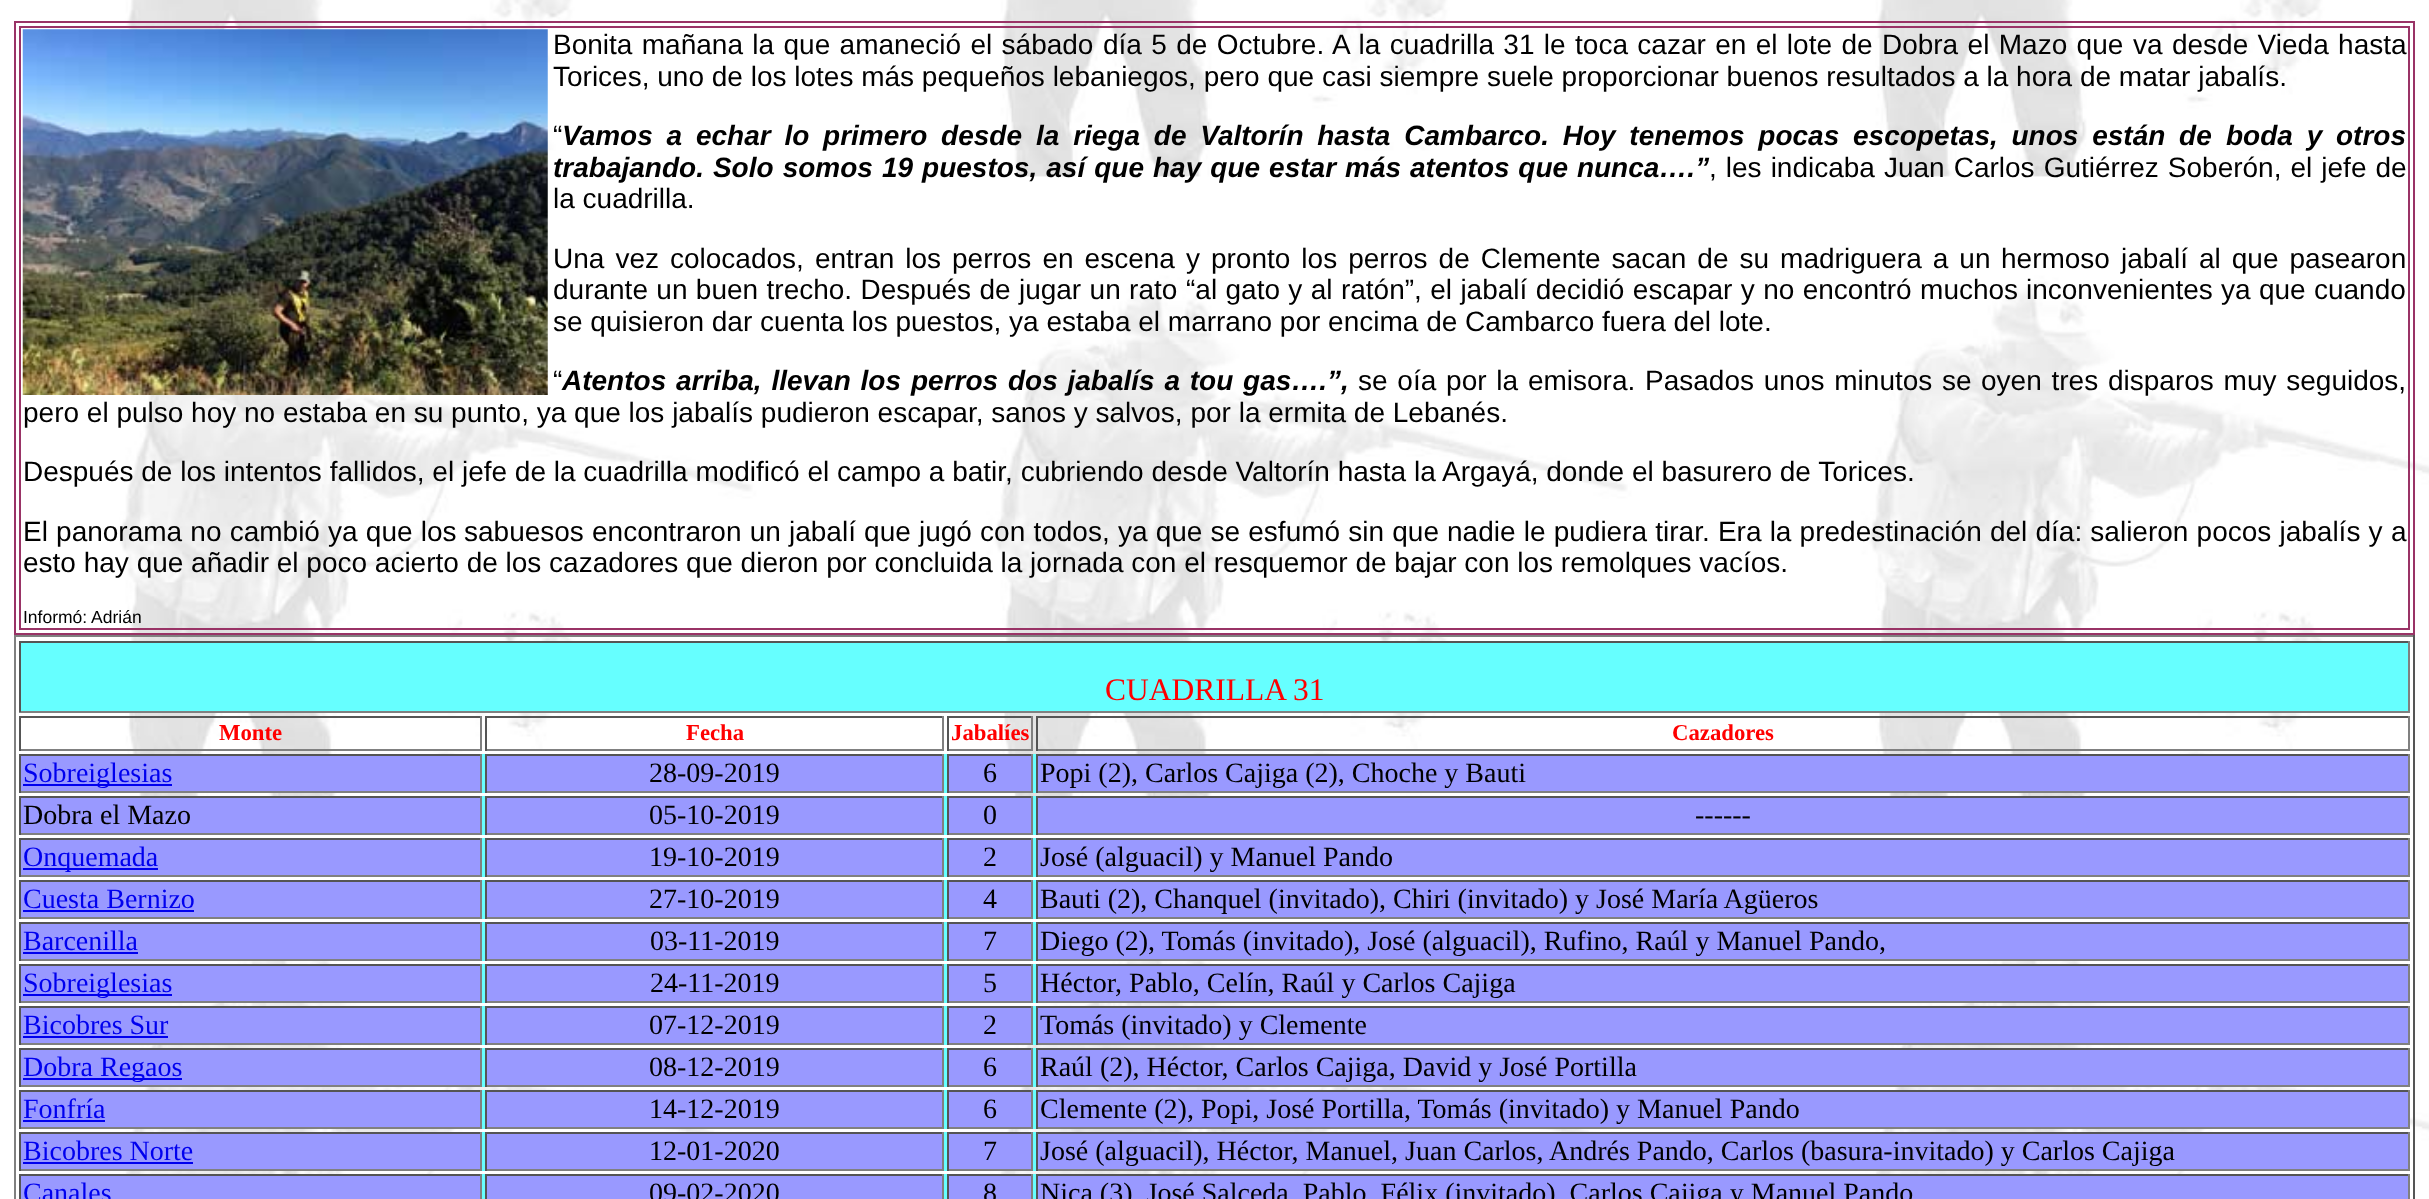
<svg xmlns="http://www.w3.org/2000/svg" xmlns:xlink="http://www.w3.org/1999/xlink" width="2429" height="1199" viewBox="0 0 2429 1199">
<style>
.cls-1{font:28px Liberation Sans;fill:#000000}
.cls-2{font:italic bold 28px Liberation Sans;fill:#000000}
.cls-3{font:17.5px Liberation Sans;fill:#000000}
.cls-4{font:31.5px Liberation Serif;fill:#ff0000}
.cls-5{font:bold 22.75px Liberation Serif;fill:#ff0000}
.cls-6{font:28px Liberation Serif;fill:#0000ee}
.cls-7{font:28px Liberation Serif;fill:#000000}
</style>
<rect width="100%" height="100%" fill="#ffffff"/>
<image xlink:href="image0.png" x="119" y="0" width="2310" height="1199"/>
<rect fill="none" stroke="#993366" stroke-width="2" x="15" y="22" width="2399" height="612"/>
<rect fill="none" stroke="#993366" stroke-width="2" x="20" y="27" width="2389" height="602"/>
<image xlink:href="image1.png" x="22" y="29" width="526" height="366"/>
<rect fill="#808080" x="14" y="635" width="2401" height="2"/>
<rect fill="#555555" x="2413" y="635" width="2" height="564"/>
<rect fill="#808080" x="14" y="635" width="2" height="564"/>
<rect fill="#66ffff" x="21" y="643" width="2387" height="68"/>
<rect fill="#555555" x="19" y="641" width="2391" height="2"/>
<rect fill="#808080" x="2408" y="641" width="2" height="71"/>
<rect fill="#808080" x="19" y="711" width="2391" height="2"/>
<rect fill="#555555" x="19" y="641" width="2" height="71"/>
<rect fill="#555555" x="19" y="716" width="462" height="2"/>
<rect fill="#808080" x="480" y="716" width="2" height="35"/>
<rect fill="#808080" x="19" y="749" width="462" height="2"/>
<rect fill="#555555" x="19" y="716" width="2" height="35"/>
<rect fill="#555555" x="485" y="716" width="458" height="2"/>
<rect fill="#808080" x="942" y="716" width="2" height="35"/>
<rect fill="#808080" x="485" y="749" width="458" height="2"/>
<rect fill="#555555" x="485" y="716" width="2" height="35"/>
<rect fill="#555555" x="947" y="716" width="86" height="2"/>
<rect fill="#808080" x="1031" y="716" width="2" height="35"/>
<rect fill="#808080" x="947" y="749" width="86" height="2"/>
<rect fill="#555555" x="947" y="716" width="2" height="35"/>
<rect fill="#555555" x="1036" y="716" width="1374" height="2"/>
<rect fill="#808080" x="2408" y="716" width="2" height="35"/>
<rect fill="#808080" x="1036" y="749" width="1374" height="2"/>
<rect fill="#555555" x="1036" y="716" width="2" height="35"/>
<rect fill="#66ffff" x="482" y="754" width="554" height="39"/>
<rect fill="#9999ff" x="21" y="756" width="459" height="35"/>
<rect fill="#555555" x="19" y="754" width="462" height="2"/>
<rect fill="#808080" x="480" y="754" width="2" height="39"/>
<rect fill="#808080" x="19" y="791" width="462" height="2"/>
<rect fill="#555555" x="19" y="754" width="2" height="39"/>
<rect fill="#0000ee" x="23" y="784" width="149" height="2"/>
<rect fill="#9999ff" x="487" y="756" width="455" height="35"/>
<rect fill="#555555" x="485" y="754" width="458" height="2"/>
<rect fill="#808080" x="942" y="754" width="2" height="39"/>
<rect fill="#808080" x="485" y="791" width="458" height="2"/>
<rect fill="#555555" x="485" y="754" width="2" height="39"/>
<rect fill="#9999ff" x="949" y="756" width="82" height="35"/>
<rect fill="#555555" x="947" y="754" width="86" height="2"/>
<rect fill="#808080" x="1031" y="754" width="2" height="39"/>
<rect fill="#808080" x="947" y="791" width="86" height="2"/>
<rect fill="#555555" x="947" y="754" width="2" height="39"/>
<rect fill="#9999ff" x="1038" y="756" width="1370" height="35"/>
<rect fill="#555555" x="1036" y="754" width="1374" height="2"/>
<rect fill="#808080" x="2408" y="754" width="2" height="39"/>
<rect fill="#808080" x="1036" y="791" width="1374" height="2"/>
<rect fill="#555555" x="1036" y="754" width="2" height="39"/>
<rect fill="#66ffff" x="482" y="796" width="554" height="39"/>
<rect fill="#9999ff" x="21" y="798" width="459" height="35"/>
<rect fill="#555555" x="19" y="796" width="462" height="2"/>
<rect fill="#808080" x="480" y="796" width="2" height="39"/>
<rect fill="#808080" x="19" y="833" width="462" height="2"/>
<rect fill="#555555" x="19" y="796" width="2" height="39"/>
<rect fill="#9999ff" x="487" y="798" width="455" height="35"/>
<rect fill="#555555" x="485" y="796" width="458" height="2"/>
<rect fill="#808080" x="942" y="796" width="2" height="39"/>
<rect fill="#808080" x="485" y="833" width="458" height="2"/>
<rect fill="#555555" x="485" y="796" width="2" height="39"/>
<rect fill="#9999ff" x="949" y="798" width="82" height="35"/>
<rect fill="#555555" x="947" y="796" width="86" height="2"/>
<rect fill="#808080" x="1031" y="796" width="2" height="39"/>
<rect fill="#808080" x="947" y="833" width="86" height="2"/>
<rect fill="#555555" x="947" y="796" width="2" height="39"/>
<rect fill="#9999ff" x="1038" y="798" width="1370" height="35"/>
<rect fill="#555555" x="1036" y="796" width="1374" height="2"/>
<rect fill="#808080" x="2408" y="796" width="2" height="39"/>
<rect fill="#808080" x="1036" y="833" width="1374" height="2"/>
<rect fill="#555555" x="1036" y="796" width="2" height="39"/>
<rect fill="#66ffff" x="482" y="838" width="554" height="39"/>
<rect fill="#9999ff" x="21" y="840" width="459" height="35"/>
<rect fill="#555555" x="19" y="838" width="462" height="2"/>
<rect fill="#808080" x="480" y="838" width="2" height="39"/>
<rect fill="#808080" x="19" y="875" width="462" height="2"/>
<rect fill="#555555" x="19" y="838" width="2" height="39"/>
<rect fill="#0000ee" x="23" y="868" width="135" height="2"/>
<rect fill="#9999ff" x="487" y="840" width="455" height="35"/>
<rect fill="#555555" x="485" y="838" width="458" height="2"/>
<rect fill="#808080" x="942" y="838" width="2" height="39"/>
<rect fill="#808080" x="485" y="875" width="458" height="2"/>
<rect fill="#555555" x="485" y="838" width="2" height="39"/>
<rect fill="#9999ff" x="949" y="840" width="82" height="35"/>
<rect fill="#555555" x="947" y="838" width="86" height="2"/>
<rect fill="#808080" x="1031" y="838" width="2" height="39"/>
<rect fill="#808080" x="947" y="875" width="86" height="2"/>
<rect fill="#555555" x="947" y="838" width="2" height="39"/>
<rect fill="#9999ff" x="1038" y="840" width="1370" height="35"/>
<rect fill="#555555" x="1036" y="838" width="1374" height="2"/>
<rect fill="#808080" x="2408" y="838" width="2" height="39"/>
<rect fill="#808080" x="1036" y="875" width="1374" height="2"/>
<rect fill="#555555" x="1036" y="838" width="2" height="39"/>
<rect fill="#66ffff" x="482" y="880" width="554" height="39"/>
<rect fill="#9999ff" x="21" y="882" width="459" height="35"/>
<rect fill="#555555" x="19" y="880" width="462" height="2"/>
<rect fill="#808080" x="480" y="880" width="2" height="39"/>
<rect fill="#808080" x="19" y="917" width="462" height="2"/>
<rect fill="#555555" x="19" y="880" width="2" height="39"/>
<rect fill="#0000ee" x="23" y="910" width="171" height="2"/>
<rect fill="#9999ff" x="487" y="882" width="455" height="35"/>
<rect fill="#555555" x="485" y="880" width="458" height="2"/>
<rect fill="#808080" x="942" y="880" width="2" height="39"/>
<rect fill="#808080" x="485" y="917" width="458" height="2"/>
<rect fill="#555555" x="485" y="880" width="2" height="39"/>
<rect fill="#9999ff" x="949" y="882" width="82" height="35"/>
<rect fill="#555555" x="947" y="880" width="86" height="2"/>
<rect fill="#808080" x="1031" y="880" width="2" height="39"/>
<rect fill="#808080" x="947" y="917" width="86" height="2"/>
<rect fill="#555555" x="947" y="880" width="2" height="39"/>
<rect fill="#9999ff" x="1038" y="882" width="1370" height="35"/>
<rect fill="#555555" x="1036" y="880" width="1374" height="2"/>
<rect fill="#808080" x="2408" y="880" width="2" height="39"/>
<rect fill="#808080" x="1036" y="917" width="1374" height="2"/>
<rect fill="#555555" x="1036" y="880" width="2" height="39"/>
<rect fill="#66ffff" x="482" y="922" width="554" height="39"/>
<rect fill="#9999ff" x="21" y="924" width="459" height="35"/>
<rect fill="#555555" x="19" y="922" width="462" height="2"/>
<rect fill="#808080" x="480" y="922" width="2" height="39"/>
<rect fill="#808080" x="19" y="959" width="462" height="2"/>
<rect fill="#555555" x="19" y="922" width="2" height="39"/>
<rect fill="#0000ee" x="23" y="952" width="115" height="2"/>
<rect fill="#9999ff" x="487" y="924" width="455" height="35"/>
<rect fill="#555555" x="485" y="922" width="458" height="2"/>
<rect fill="#808080" x="942" y="922" width="2" height="39"/>
<rect fill="#808080" x="485" y="959" width="458" height="2"/>
<rect fill="#555555" x="485" y="922" width="2" height="39"/>
<rect fill="#9999ff" x="949" y="924" width="82" height="35"/>
<rect fill="#555555" x="947" y="922" width="86" height="2"/>
<rect fill="#808080" x="1031" y="922" width="2" height="39"/>
<rect fill="#808080" x="947" y="959" width="86" height="2"/>
<rect fill="#555555" x="947" y="922" width="2" height="39"/>
<rect fill="#9999ff" x="1038" y="924" width="1370" height="35"/>
<rect fill="#555555" x="1036" y="922" width="1374" height="2"/>
<rect fill="#808080" x="2408" y="922" width="2" height="39"/>
<rect fill="#808080" x="1036" y="959" width="1374" height="2"/>
<rect fill="#555555" x="1036" y="922" width="2" height="39"/>
<rect fill="#66ffff" x="482" y="964" width="554" height="39"/>
<rect fill="#9999ff" x="21" y="966" width="459" height="35"/>
<rect fill="#555555" x="19" y="964" width="462" height="2"/>
<rect fill="#808080" x="480" y="964" width="2" height="39"/>
<rect fill="#808080" x="19" y="1001" width="462" height="2"/>
<rect fill="#555555" x="19" y="964" width="2" height="39"/>
<rect fill="#0000ee" x="23" y="994" width="149" height="2"/>
<rect fill="#9999ff" x="487" y="966" width="455" height="35"/>
<rect fill="#555555" x="485" y="964" width="458" height="2"/>
<rect fill="#808080" x="942" y="964" width="2" height="39"/>
<rect fill="#808080" x="485" y="1001" width="458" height="2"/>
<rect fill="#555555" x="485" y="964" width="2" height="39"/>
<rect fill="#9999ff" x="949" y="966" width="82" height="35"/>
<rect fill="#555555" x="947" y="964" width="86" height="2"/>
<rect fill="#808080" x="1031" y="964" width="2" height="39"/>
<rect fill="#808080" x="947" y="1001" width="86" height="2"/>
<rect fill="#555555" x="947" y="964" width="2" height="39"/>
<rect fill="#9999ff" x="1038" y="966" width="1370" height="35"/>
<rect fill="#555555" x="1036" y="964" width="1374" height="2"/>
<rect fill="#808080" x="2408" y="964" width="2" height="39"/>
<rect fill="#808080" x="1036" y="1001" width="1374" height="2"/>
<rect fill="#555555" x="1036" y="964" width="2" height="39"/>
<rect fill="#66ffff" x="482" y="1006" width="554" height="39"/>
<rect fill="#9999ff" x="21" y="1008" width="459" height="35"/>
<rect fill="#555555" x="19" y="1006" width="462" height="2"/>
<rect fill="#808080" x="480" y="1006" width="2" height="39"/>
<rect fill="#808080" x="19" y="1043" width="462" height="2"/>
<rect fill="#555555" x="19" y="1006" width="2" height="39"/>
<rect fill="#0000ee" x="23" y="1036" width="145" height="2"/>
<rect fill="#9999ff" x="487" y="1008" width="455" height="35"/>
<rect fill="#555555" x="485" y="1006" width="458" height="2"/>
<rect fill="#808080" x="942" y="1006" width="2" height="39"/>
<rect fill="#808080" x="485" y="1043" width="458" height="2"/>
<rect fill="#555555" x="485" y="1006" width="2" height="39"/>
<rect fill="#9999ff" x="949" y="1008" width="82" height="35"/>
<rect fill="#555555" x="947" y="1006" width="86" height="2"/>
<rect fill="#808080" x="1031" y="1006" width="2" height="39"/>
<rect fill="#808080" x="947" y="1043" width="86" height="2"/>
<rect fill="#555555" x="947" y="1006" width="2" height="39"/>
<rect fill="#9999ff" x="1038" y="1008" width="1370" height="35"/>
<rect fill="#555555" x="1036" y="1006" width="1374" height="2"/>
<rect fill="#808080" x="2408" y="1006" width="2" height="39"/>
<rect fill="#808080" x="1036" y="1043" width="1374" height="2"/>
<rect fill="#555555" x="1036" y="1006" width="2" height="39"/>
<rect fill="#66ffff" x="482" y="1048" width="554" height="39"/>
<rect fill="#9999ff" x="21" y="1050" width="459" height="35"/>
<rect fill="#555555" x="19" y="1048" width="462" height="2"/>
<rect fill="#808080" x="480" y="1048" width="2" height="39"/>
<rect fill="#808080" x="19" y="1085" width="462" height="2"/>
<rect fill="#555555" x="19" y="1048" width="2" height="39"/>
<rect fill="#0000ee" x="23" y="1078" width="159" height="2"/>
<rect fill="#9999ff" x="487" y="1050" width="455" height="35"/>
<rect fill="#555555" x="485" y="1048" width="458" height="2"/>
<rect fill="#808080" x="942" y="1048" width="2" height="39"/>
<rect fill="#808080" x="485" y="1085" width="458" height="2"/>
<rect fill="#555555" x="485" y="1048" width="2" height="39"/>
<rect fill="#9999ff" x="949" y="1050" width="82" height="35"/>
<rect fill="#555555" x="947" y="1048" width="86" height="2"/>
<rect fill="#808080" x="1031" y="1048" width="2" height="39"/>
<rect fill="#808080" x="947" y="1085" width="86" height="2"/>
<rect fill="#555555" x="947" y="1048" width="2" height="39"/>
<rect fill="#9999ff" x="1038" y="1050" width="1370" height="35"/>
<rect fill="#555555" x="1036" y="1048" width="1374" height="2"/>
<rect fill="#808080" x="2408" y="1048" width="2" height="39"/>
<rect fill="#808080" x="1036" y="1085" width="1374" height="2"/>
<rect fill="#555555" x="1036" y="1048" width="2" height="39"/>
<rect fill="#66ffff" x="482" y="1090" width="554" height="39"/>
<rect fill="#9999ff" x="21" y="1092" width="459" height="35"/>
<rect fill="#555555" x="19" y="1090" width="462" height="2"/>
<rect fill="#808080" x="480" y="1090" width="2" height="39"/>
<rect fill="#808080" x="19" y="1127" width="462" height="2"/>
<rect fill="#555555" x="19" y="1090" width="2" height="39"/>
<rect fill="#0000ee" x="23" y="1120" width="82" height="2"/>
<rect fill="#9999ff" x="487" y="1092" width="455" height="35"/>
<rect fill="#555555" x="485" y="1090" width="458" height="2"/>
<rect fill="#808080" x="942" y="1090" width="2" height="39"/>
<rect fill="#808080" x="485" y="1127" width="458" height="2"/>
<rect fill="#555555" x="485" y="1090" width="2" height="39"/>
<rect fill="#9999ff" x="949" y="1092" width="82" height="35"/>
<rect fill="#555555" x="947" y="1090" width="86" height="2"/>
<rect fill="#808080" x="1031" y="1090" width="2" height="39"/>
<rect fill="#808080" x="947" y="1127" width="86" height="2"/>
<rect fill="#555555" x="947" y="1090" width="2" height="39"/>
<rect fill="#9999ff" x="1038" y="1092" width="1370" height="35"/>
<rect fill="#555555" x="1036" y="1090" width="1374" height="2"/>
<rect fill="#808080" x="2408" y="1090" width="2" height="39"/>
<rect fill="#808080" x="1036" y="1127" width="1374" height="2"/>
<rect fill="#555555" x="1036" y="1090" width="2" height="39"/>
<rect fill="#66ffff" x="482" y="1132" width="554" height="39"/>
<rect fill="#9999ff" x="21" y="1134" width="459" height="35"/>
<rect fill="#555555" x="19" y="1132" width="462" height="2"/>
<rect fill="#808080" x="480" y="1132" width="2" height="39"/>
<rect fill="#808080" x="19" y="1169" width="462" height="2"/>
<rect fill="#555555" x="19" y="1132" width="2" height="39"/>
<rect fill="#0000ee" x="23" y="1162" width="170" height="2"/>
<rect fill="#9999ff" x="487" y="1134" width="455" height="35"/>
<rect fill="#555555" x="485" y="1132" width="458" height="2"/>
<rect fill="#808080" x="942" y="1132" width="2" height="39"/>
<rect fill="#808080" x="485" y="1169" width="458" height="2"/>
<rect fill="#555555" x="485" y="1132" width="2" height="39"/>
<rect fill="#9999ff" x="949" y="1134" width="82" height="35"/>
<rect fill="#555555" x="947" y="1132" width="86" height="2"/>
<rect fill="#808080" x="1031" y="1132" width="2" height="39"/>
<rect fill="#808080" x="947" y="1169" width="86" height="2"/>
<rect fill="#555555" x="947" y="1132" width="2" height="39"/>
<rect fill="#9999ff" x="1038" y="1134" width="1370" height="35"/>
<rect fill="#555555" x="1036" y="1132" width="1374" height="2"/>
<rect fill="#808080" x="2408" y="1132" width="2" height="39"/>
<rect fill="#808080" x="1036" y="1169" width="1374" height="2"/>
<rect fill="#555555" x="1036" y="1132" width="2" height="39"/>
<rect fill="#66ffff" x="482" y="1174" width="554" height="25"/>
<rect fill="#9999ff" x="21" y="1176" width="459" height="23"/>
<rect fill="#555555" x="19" y="1174" width="462" height="2"/>
<rect fill="#808080" x="480" y="1174" width="2" height="25"/>
<rect fill="#555555" x="19" y="1174" width="2" height="25"/>
<rect fill="#9999ff" x="487" y="1176" width="455" height="23"/>
<rect fill="#555555" x="485" y="1174" width="458" height="2"/>
<rect fill="#808080" x="942" y="1174" width="2" height="25"/>
<rect fill="#555555" x="485" y="1174" width="2" height="25"/>
<rect fill="#9999ff" x="949" y="1176" width="82" height="23"/>
<rect fill="#555555" x="947" y="1174" width="86" height="2"/>
<rect fill="#808080" x="1031" y="1174" width="2" height="25"/>
<rect fill="#555555" x="947" y="1174" width="2" height="25"/>
<rect fill="#9999ff" x="1038" y="1176" width="1370" height="23"/>
<rect fill="#555555" x="1036" y="1174" width="1374" height="2"/>
<rect fill="#808080" x="2408" y="1174" width="2" height="25"/>
<rect fill="#555555" x="1036" y="1174" width="2" height="25"/>
<text class="cls-1" x="553" y="54" word-spacing="1.6">Bonita mañana la que amaneció el sábado</text>
<text class="cls-1" x="1103" y="54" word-spacing="1.6">día 5 de Octubre. A la cuadrilla 31 le toca cazar en el lote de Dobra el Mazo que</text>
<text class="cls-1" x="2133" y="54" word-spacing="1.6">va desde Vieda hasta</text>
<text class="cls-1" x="553" y="86">Torices, uno de los lotes más pequeños lebaniegos, pero que casi siempre suele proporcionar buenos resultados a la hora de matar jabalís.</text>
<text class="cls-1" x="553" y="145">“</text>
<text class="cls-2" x="562" y="145" word-spacing="6">Vamos a echar lo primero desde</text>
<text class="cls-2" x="1036" y="145" word-spacing="6">la riega de Valtorín hasta Cambarco. Hoy tenemos pocas escopetas, unos están de</text>
<text class="cls-2" x="2226" y="145" word-spacing="6">boda y otros</text>
<text class="cls-2" x="553" y="177" word-spacing="1.25">trabajando. Solo somos 19 puestos, así que hay que estar más</text>
<text class="cls-2" x="1410" y="177" word-spacing="1">atentos que nunca….”</text>
<text class="cls-1" x="1709" y="177" word-spacing="1.25">, les indicaba Juan Carlos Gutiérrez Soberón, el jefe de</text>
<text class="cls-1" x="553" y="208">la cuadrilla.</text>
<text class="cls-1" x="553" y="268" word-spacing="3.25">Una vez colocados, entran los</text>
<text class="cls-1" x="952" y="268" word-spacing="3.25">perros en escena y pronto los perros de Clemente sacan de su madriguera a un</text>
<text class="cls-1" x="2001" y="268" word-spacing="3.25">hermoso jabalí al que pasearon</text>
<text class="cls-1" x="553" y="299" word-spacing="0.6">durante un buen trecho. Después de jugar un rato</text>
<text class="cls-1" x="1186" y="299" word-spacing="0.6">“al gato y al ratón”, el jabalí decidió escapar y no encontró muchos</text>
<text class="cls-1" x="2026" y="299" word-spacing="0.5">inconvenientes ya que cuando</text>
<text class="cls-1" x="553" y="331">se quisieron dar cuenta los puestos, ya estaba el marrano por encima de Cambarco fuera del lote.</text>
<text class="cls-1" x="553" y="390">“</text>
<text class="cls-2" x="562" y="390" word-spacing="2">Atentos arriba, llevan los</text>
<text class="cls-2" x="911" y="390" word-spacing="2">perros dos jabalís a tou gas….”,</text>
<text class="cls-1" x="1358" y="390" word-spacing="2">se oía por la emisora. Pasados unos minutos se</text>
<text class="cls-1" x="1981" y="390" word-spacing="2">oyen tres disparos muy seguidos,</text>
<text class="cls-1" x="23" y="422">pero el pulso hoy no estaba en su punto, ya que los jabalís pudieron escapar, sanos y salvos, por la ermita de Lebanés.</text>
<text class="cls-1" x="23" y="481">Después de los intentos fallidos, el jefe de la cuadrilla modificó el campo a batir, cubriendo desde Valtorín hasta la Argayá, donde el basurero de Torices.</text>
<text class="cls-1" x="23" y="541" word-spacing="0.4">El panorama no cambió ya que los</text>
<text class="cls-1" x="464" y="541" word-spacing="0.4">sabuesos encontraron un jabalí que jugó con todos, ya que se esfumó sin que</text>
<text class="cls-1" x="1447" y="541" word-spacing="0.4">nadie le pudiera tirar. Era la predestinación del día: salieron pocos jabalís y</text>
<text class="cls-1" x="2391" y="541">a</text>
<text class="cls-1" x="23" y="572">esto hay que añadir el poco acierto de los cazadores que dieron por concluida la jornada con el resquemor de bajar con los remolques vacíos.</text>
<text class="cls-3" x="23" y="623">Informó: Adrián</text>
<text class="cls-4" x="1105" y="700">CUADRILLA 31</text>
<text class="cls-5" x="219" y="740">Monte</text>
<text class="cls-5" x="686" y="740">Fecha</text>
<text class="cls-5" x="951" y="740">Jabalíes</text>
<text class="cls-5" x="1672" y="740">Cazadores</text>
<text class="cls-6" x="23" y="782">Sobreiglesias</text>
<text class="cls-7" x="649" y="782">28-09-2019</text>
<text class="cls-7" x="983" y="782">6</text>
<text class="cls-7" x="1040" y="782">Popi (2), Carlos Cajiga (2), Choche y Bauti</text>
<text class="cls-7" x="23" y="824">Dobra el Mazo</text>
<text class="cls-7" x="649" y="824">05-10-2019</text>
<text class="cls-7" x="983" y="824">0</text>
<text class="cls-7" x="1695" y="824">------</text>
<text class="cls-6" x="23" y="866">Onquemada</text>
<text class="cls-7" x="649" y="866">19-10-2019</text>
<text class="cls-7" x="983" y="866">2</text>
<text class="cls-7" x="1040" y="866">José (alguacil) y Manuel Pando</text>
<text class="cls-6" x="23" y="908">Cuesta Bernizo</text>
<text class="cls-7" x="649" y="908">27-10-2019</text>
<text class="cls-7" x="983" y="908">4</text>
<text class="cls-7" x="1040" y="908">Bauti (2), Chanquel (invitado), Chiri (invitado) y José María Agüeros</text>
<text class="cls-6" x="23" y="950">Barcenilla</text>
<text class="cls-7" x="650" y="950">03-11-2019</text>
<text class="cls-7" x="983" y="950">7</text>
<text class="cls-7" x="1040" y="950">Diego (2), Tomás (invitado), José (alguacil), Rufino, Raúl y Manuel Pando,</text>
<text class="cls-6" x="23" y="992">Sobreiglesias</text>
<text class="cls-7" x="650" y="992">24-11-2019</text>
<text class="cls-7" x="983" y="992">5</text>
<text class="cls-7" x="1040" y="992">Héctor, Pablo, Celín, Raúl y Carlos Cajiga</text>
<text class="cls-6" x="23" y="1034">Bicobres Sur</text>
<text class="cls-7" x="649" y="1034">07-12-2019</text>
<text class="cls-7" x="983" y="1034">2</text>
<text class="cls-7" x="1040" y="1034">Tomás (invitado) y Clemente</text>
<text class="cls-6" x="23" y="1076">Dobra Regaos</text>
<text class="cls-7" x="649" y="1076">08-12-2019</text>
<text class="cls-7" x="983" y="1076">6</text>
<text class="cls-7" x="1040" y="1076">Raúl (2), Héctor, Carlos Cajiga, David y José Portilla</text>
<text class="cls-6" x="23" y="1118">Fonfría</text>
<text class="cls-7" x="649" y="1118">14-12-2019</text>
<text class="cls-7" x="983" y="1118">6</text>
<text class="cls-7" x="1040" y="1118">Clemente (2), Popi, José Portilla, Tomás (invitado) y Manuel Pando</text>
<text class="cls-6" x="23" y="1160">Bicobres Norte</text>
<text class="cls-7" x="649" y="1160">12-01-2020</text>
<text class="cls-7" x="983" y="1160">7</text>
<text class="cls-7" x="1040" y="1160">José (alguacil), Héctor, Manuel, Juan Carlos, Andrés Pando, Carlos (basura-invitado) y Carlos Cajiga</text>
<text class="cls-6" x="23" y="1202">Canales</text>
<text class="cls-7" x="649" y="1202">09-02-2020</text>
<text class="cls-7" x="983" y="1202">8</text>
<text class="cls-7" x="1040" y="1202">Nica (3), José Salceda, Pablo, Félix (invitado), Carlos Cajiga y Manuel Pando</text>
</svg>
